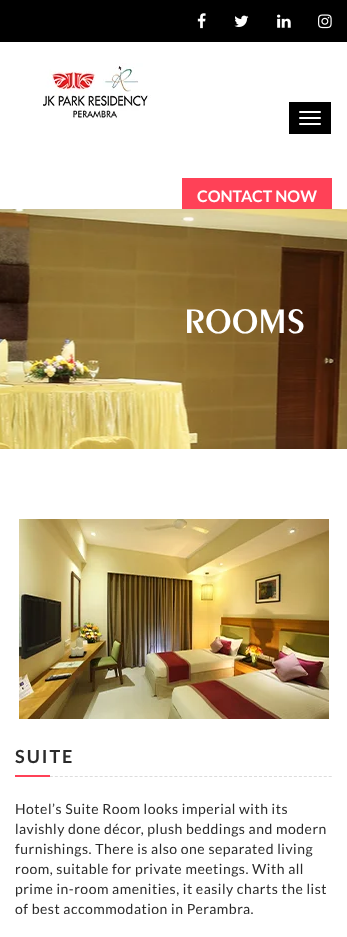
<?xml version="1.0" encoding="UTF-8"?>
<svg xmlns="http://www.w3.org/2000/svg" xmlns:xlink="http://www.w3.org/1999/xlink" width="347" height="937">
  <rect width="100%" height="100%" fill="#ffffff" />
  <rect width="347" height="42" fill="#000000" />
  <image x="197" y="13" width="9" height="16" xlink:href="image1.png" />
  <image x="234" y="15" width="15" height="12" xlink:href="image2.png" />
  <image x="277" y="14" width="14" height="14" xlink:href="image3.png" />
  <image x="318" y="14" width="14" height="15" xlink:href="image4.png" />
  <image x="43" y="63" width="108" height="56" xlink:href="image5.png" />
  <rect x="289" y="102" width="42" height="32" fill="#000000" />
  <rect x="299" y="111" width="22" height="2" rx="1" fill="#ffffff" />
  <rect x="299" y="117" width="22" height="2" rx="1" fill="#ffffff" />
  <rect x="299" y="123" width="22" height="2" rx="1" fill="#ffffff" />
  <rect x="182" y="178" width="150" height="31" fill="#ff4157" />
  <image x="0" y="209" width="347" height="240" xlink:href="image6.png" />
  <image x="19" y="519" width="310" height="200" xlink:href="image7.png" />
  <path d="M 15 776.5 h 317" fill="none" stroke="#dddddd" stroke-dasharray="3 1.98" />
  <rect x="15" y="775" width="35" height="2" fill="#ff4157" />
  <text x="197" y="202" style="font-family: Lato; font-size: 16px; font-weight: bold; fill: #ffffff">CONTACT NOW</text>
  <text x="184" y="333" style="font-family: 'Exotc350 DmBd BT'; font-size: 36px; font-weight: 600; fill: #ffffff">ROOMS</text>
  <text x="15" y="763" style="font-family: Lato; font-size: 18px; font-weight: bold; letter-spacing: 2px; fill: #2b2b2b">SUITE</text>
  <text x="15" y="814" style="font-family: Lato; font-size: 14px; letter-spacing: 0.5px; fill: #2b2b2b">Hotel’s Suite Room looks imperial with its</text>
  <text x="15" y="834" style="font-family: Lato; font-size: 14px; letter-spacing: 0.5px; fill: #2b2b2b">lavishly done décor, plush beddings and modern</text>
  <text x="15" y="854" style="font-family: Lato; font-size: 14px; letter-spacing: 0.5px; fill: #2b2b2b">furnishings. There is also one separated living</text>
  <text x="15" y="874" style="font-family: Lato; font-size: 14px; letter-spacing: 0.5px; fill: #2b2b2b">room, suitable for private meetings. With all</text>
  <text x="15" y="894" style="font-family: Lato; font-size: 14px; letter-spacing: 0.5px; fill: #2b2b2b">prime in-room amenities, it easily charts the list</text>
  <text x="15" y="914" style="font-family: Lato; font-size: 14px; letter-spacing: 0.5px; fill: #2b2b2b">of best accommodation in Perambra.</text>
</svg>
